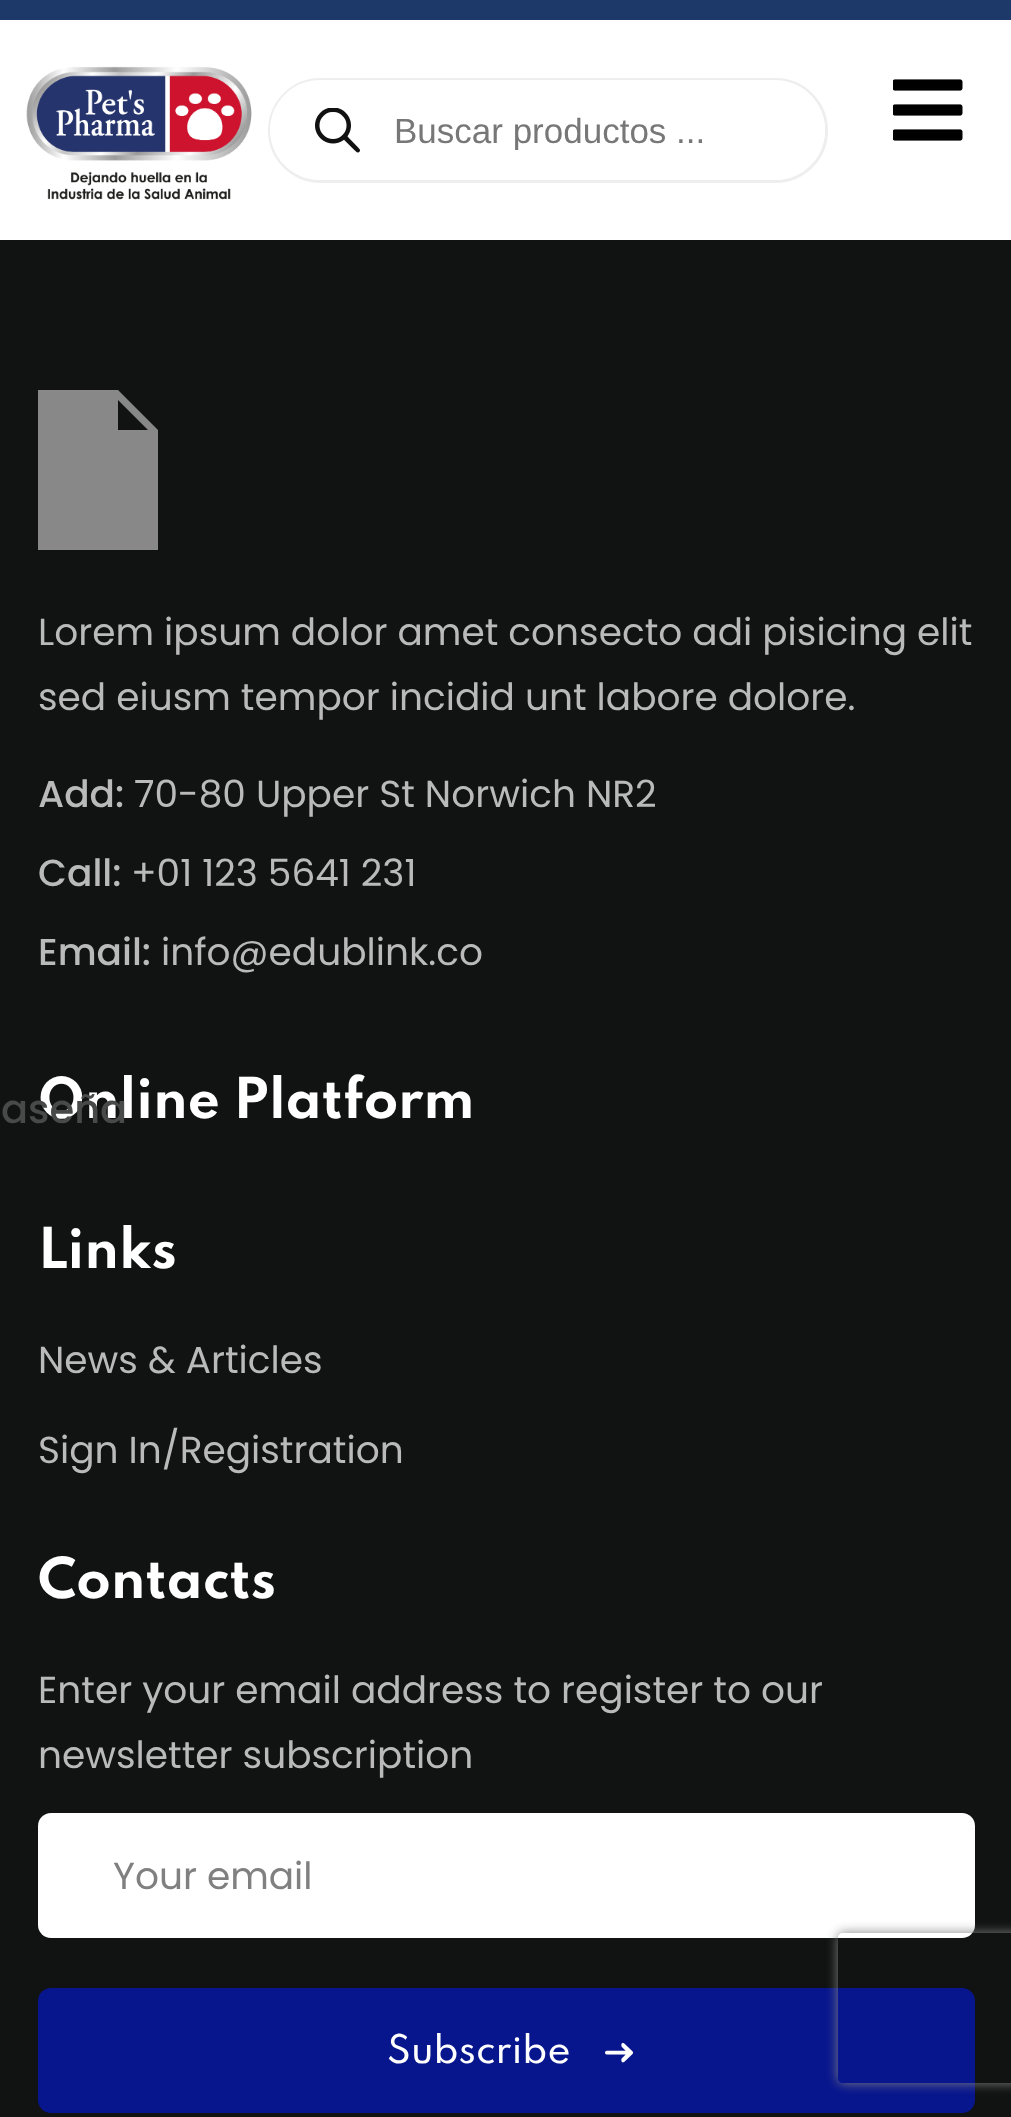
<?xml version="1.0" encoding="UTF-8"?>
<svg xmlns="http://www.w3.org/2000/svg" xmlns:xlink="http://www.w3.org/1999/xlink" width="1011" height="2117">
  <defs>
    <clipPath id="clip1"><path d="M 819 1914 h 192 v 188 h -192 z m 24 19 h 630 c 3 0 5 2 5 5 v 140 c 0 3 -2 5 -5 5 h -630 c -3 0 -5 -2 -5 -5 v -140 c 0 -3 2 -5 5 -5 z" clip-rule="evenodd" /></clipPath>
    <clipPath id="clip2"><rect x="395" y="110" width="365" height="40" /></clipPath>
  </defs>
  <rect width="100%" height="100%" fill="#ffffff" />
  <rect width="1011" height="20" fill="#1c3969" />
  <image x="26" y="66" width="226" height="134" xlink:href="image1.png" />
  <rect x="269.5" y="79.5" width="557" height="102" rx="51" fill="none" stroke="#eeeeee" stroke-width="3" />
  <rect x="270" y="80" width="555" height="100" rx="50" fill="#ffffff" />
  <image x="315" y="108" width="45" height="45" xlink:href="image2.png" />
  <image x="893" y="79" width="70" height="62" xlink:href="image3.png" />
  <rect y="240" width="1011" height="1877" fill="#111212" />
  <path d="M 118 390 h -80 v 160 h 120 v -120 z m 0 40 v -30 l 30 30 z" fill="#888888" />
  <rect x="38" y="1813" width="937" height="125" rx="13" fill="#ffffff" />
  <rect x="38" y="1988" width="937" height="125" rx="13" fill="#08168e" />
  <image x="605" y="2042" width="29" height="21" xlink:href="image4.png" />
  <g clip-path="url(#clip1)">
    <rect x="838" y="1933" width="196" height="150" rx="5" fill="#808080" filter="blur(6px)" />
  </g>
  <g clip-path="url(#clip2)">
    <text x="394" y="143" style="font-family: Liberation Sans; font-size: 35px; fill: #777777">Buscar productos ...</text>
  </g>
  <text x="38" y="645" style="font-family: Poppins; font-size: 37.5px; fill: #bababa">Lorem ipsum dolor amet consecto adi pisicing elit</text>
  <text x="38" y="710" style="font-family: Poppins; font-size: 37.5px; fill: #bababa">sed eiusm tempor incidid unt labore dolore.</text>
  <text x="38" y="807" style="font-family: Poppins; font-size: 37.5px; font-weight: 500; fill: #bababa">Add:</text>
  <text x="134" y="807" style="font-family: Poppins; font-size: 37.5px; fill: #bababa">70-80 Upper St Norwich NR2</text>
  <text x="38" y="886" style="font-family: Poppins; font-size: 37.5px; font-weight: 500; fill: #bababa">Call:</text>
  <text x="131" y="886" style="font-family: Poppins; font-size: 37.5px; fill: #bababa">+01 123 5641 231</text>
  <text x="38" y="965" style="font-family: Poppins; font-size: 37.5px; font-weight: 500; fill: #bababa">Email:</text>
  <text x="161" y="965" style="font-family: Poppins; font-size: 37.5px; fill: #bababa">info@edublink.co</text>
  <text x="38" y="1118" style="font-family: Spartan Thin; font-size: 50px; font-weight: bold; fill: #ffffff">Online Platform</text>
  <text x="1" y="1123" style="font-family: Poppins; font-size: 40px; font-weight: 500; fill: #484949">aseña</text>
  <text x="38" y="1268" style="font-family: Spartan Thin; font-size: 50px; font-weight: bold; fill: #ffffff">Links</text>
  <text x="38" y="1373" style="font-family: Poppins; font-size: 37.5px; fill: #bababa">News &amp; Articles</text>
  <text x="38" y="1463" style="font-family: Poppins; font-size: 37.5px; fill: #bababa">Sign In/Registration</text>
  <text x="38" y="1598" style="font-family: Spartan Thin; font-size: 50px; font-weight: bold; fill: #ffffff">Contacts</text>
  <text x="38" y="1703" style="font-family: Poppins; font-size: 37.5px; fill: #bababa">Enter your email address to register to our</text>
  <text x="38" y="1768" style="font-family: Poppins; font-size: 37.5px; fill: #bababa">newsletter subscription</text>
  <text x="113" y="1889" style="font-family: Poppins; font-size: 37.5px; fill: #808080">Your email</text>
  <text x="387" y="2063" style="font-family: Spartan Thin; font-size: 35px; font-weight: 500; fill: #ffffff">Subscribe</text>
</svg>
